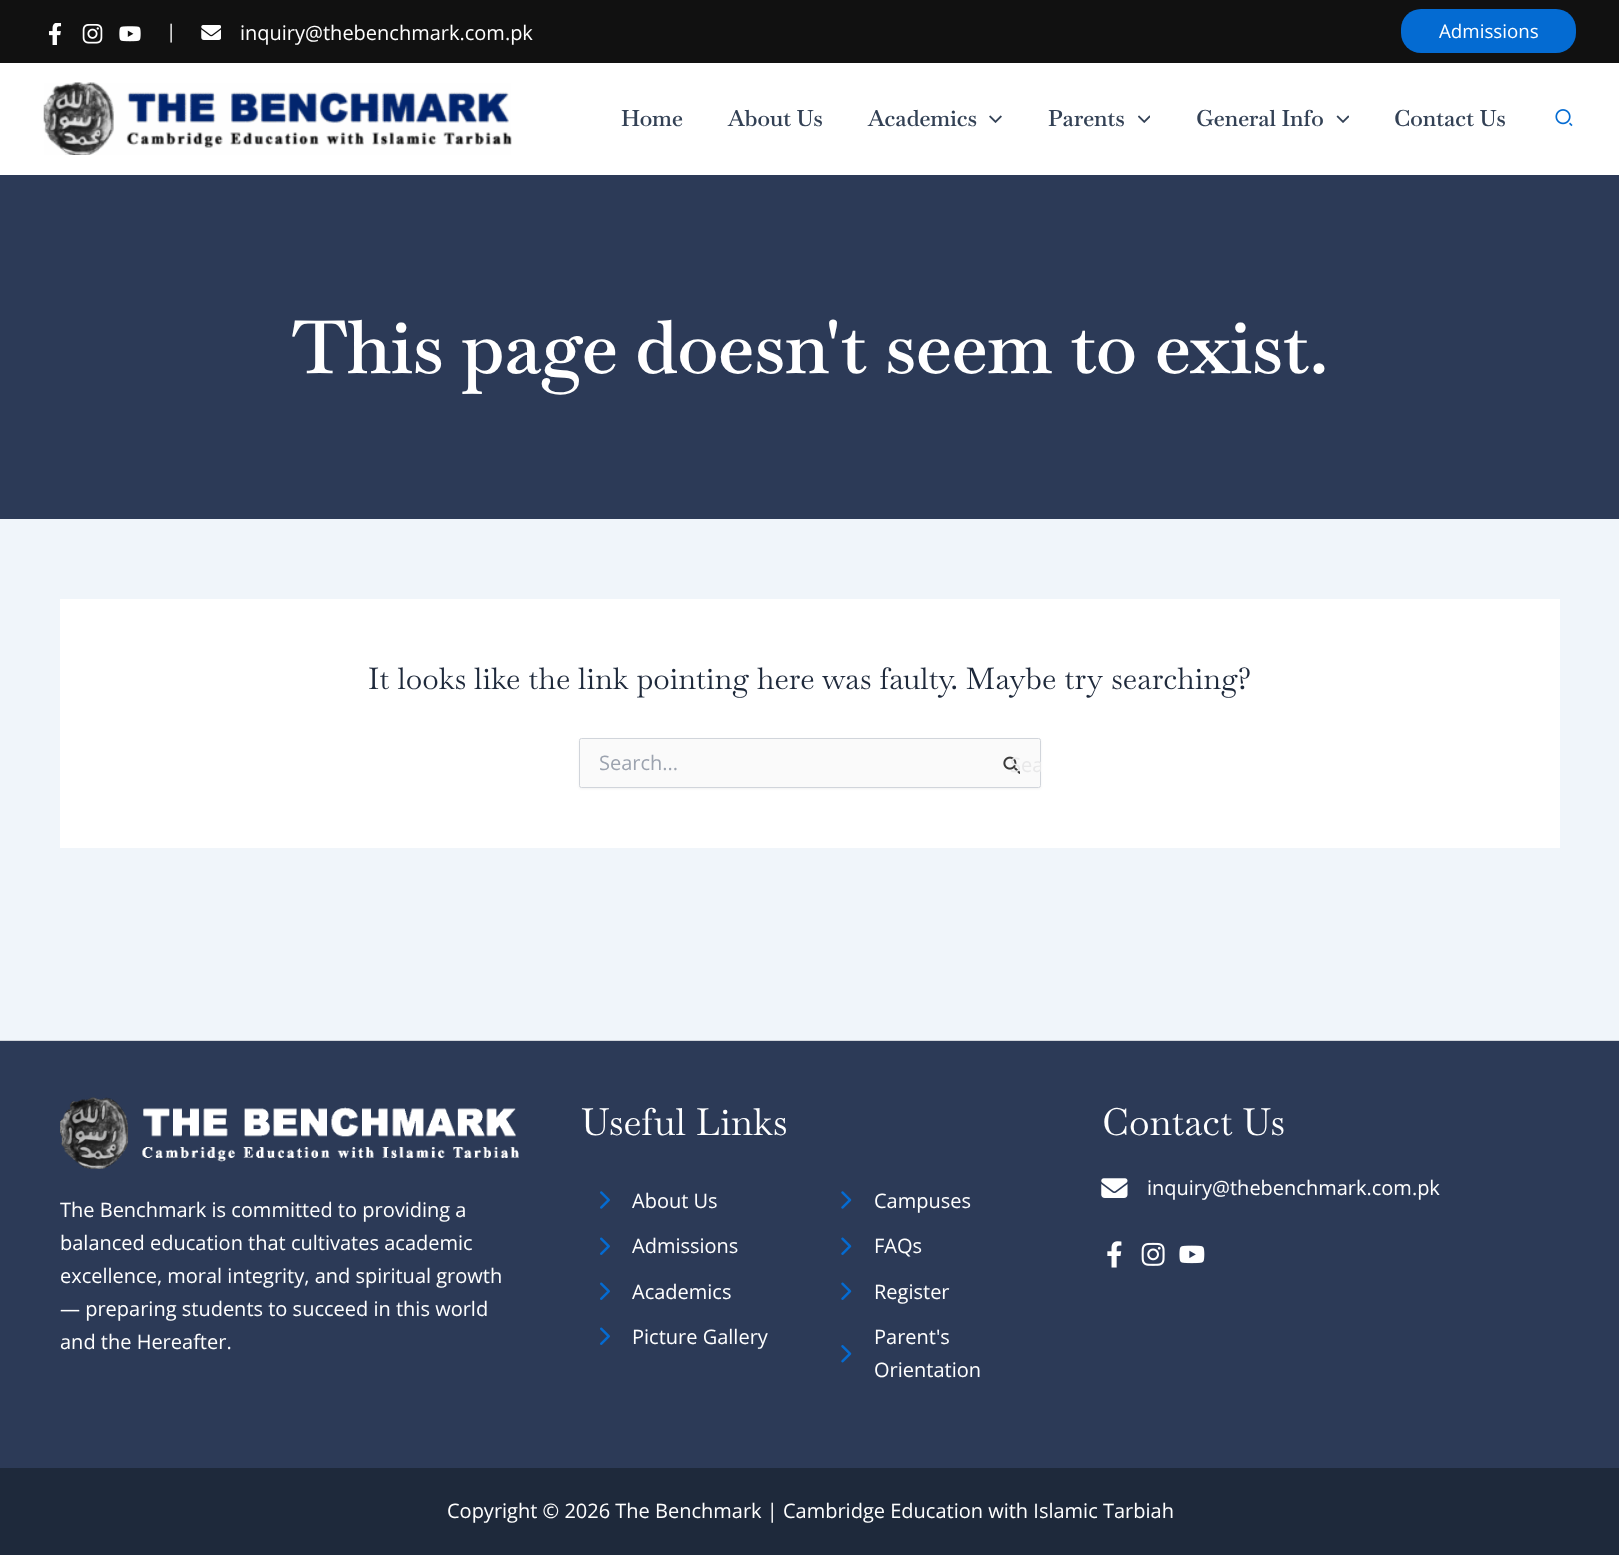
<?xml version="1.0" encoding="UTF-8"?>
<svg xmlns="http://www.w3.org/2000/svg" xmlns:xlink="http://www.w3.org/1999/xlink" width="1619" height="1555">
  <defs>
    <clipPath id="clip1"><rect x="985" y="738" width="56" height="52" rx="2.5" /></clipPath>
  </defs>
  <rect width="100%" height="100%" fill="#f0f5fa" />
  <rect width="1619" height="63" fill="#111111" />
  <image x="48" y="23" width="14" height="22" xlink:href="image1.png" />
  <image x="82" y="24" width="21" height="20" xlink:href="image2.png" />
  <image x="119" y="26" width="22" height="16" xlink:href="image3.png" />
  <image x="201" y="25" width="20" height="15" xlink:href="image4.png" />
  <rect x="1401" y="9" width="175" height="44" rx="20" fill="#046bd2" />
  <rect y="63" width="1619" height="112" fill="#ffffff" />
  <image x="43" y="82" width="469" height="73" xlink:href="image5.png" />
  <image x="989" y="115" width="13" height="8" xlink:href="image6.png" />
  <image x="1138" y="115" width="12" height="8" xlink:href="image7.png" />
  <image x="1336" y="115" width="13" height="8" xlink:href="image8.png" />
  <image x="1555" y="109" width="18" height="18" xlink:href="image9.png" />
  <rect y="175" width="1619" height="344" fill="#2c3a57" />
  <rect x="60" y="599" width="1500" height="249" fill="#ffffff" />
  <rect x="579" y="739" width="462" height="50" rx="2.5" fill="#000000" fill-opacity="0.05" filter="blur(1px)" />
  <rect x="579.5" y="738.5" width="461" height="49" rx="2" fill="#fafafa" stroke="#d1d5db" />
  <image x="1003" y="756" width="17" height="18" xlink:href="image10.png" />
  <rect y="1041" width="1619" height="427" fill="#2c3a57" />
  <rect y="1040" width="1619" height="1" fill="#d1d5db" />
  <image x="600" y="1191" width="10" height="18" xlink:href="image11.png" />
  <image x="600" y="1237" width="10" height="18" xlink:href="image12.png" />
  <image x="600" y="1282" width="10" height="18" xlink:href="image12.png" />
  <image x="600" y="1327" width="10" height="18" xlink:href="image12.png" />
  <image x="841" y="1191" width="11" height="18" xlink:href="image13.png" />
  <image x="841" y="1237" width="11" height="18" xlink:href="image14.png" />
  <image x="841" y="1282" width="11" height="18" xlink:href="image14.png" />
  <image x="841" y="1345" width="11" height="18" xlink:href="image15.png" />
  <image x="1101" y="1178" width="27" height="20" xlink:href="image16.png" />
  <image x="1107" y="1241" width="15" height="27" xlink:href="image17.png" />
  <image x="1141" y="1242" width="24" height="24" xlink:href="image18.png" />
  <image x="1179" y="1245" width="26" height="19" xlink:href="image19.png" />
  <image x="60" y="1097" width="459" height="72" xlink:href="image20.png" />
  <rect y="1468" width="1619" height="87" fill="#1e293b" />
  <text x="166" y="38" style="font-family: Open Sans; font-size: 18.75px; fill: #ffffff">|</text>
  <text x="240" y="40" style="font-family: Open Sans; font-size: 20px; fill: #ffffff">inquiry@thebenchmark.com.pk</text>
  <text x="1439" y="38" style="font-family: Open Sans; font-size: 18.75px; fill: #ffffff">Admissions</text>
  <text x="621" y="126" style="font-family: Baskervville; font-size: 22.5px; font-weight: 600; fill: #334155">Home</text>
  <text x="728" y="126" style="font-family: Baskervville; font-size: 22.5px; font-weight: 600; fill: #334155">About Us</text>
  <text x="868" y="126" style="font-family: Baskervville; font-size: 22.5px; font-weight: 600; fill: #334155">Academics</text>
  <text x="1048" y="126" style="font-family: Baskervville; font-size: 22.5px; font-weight: 600; fill: #334155">Parents</text>
  <text x="1196" y="126" style="font-family: Baskervville; font-size: 22.5px; font-weight: 600; fill: #334155">General Info</text>
  <text x="1394" y="126" style="font-family: Baskervville; font-size: 22.5px; font-weight: 600; fill: #334155">Contact Us</text>
  <text x="292" y="373" style="font-family: Baskervville; font-size: 73.75px; font-weight: 600; fill: #ffffff">This page doesn't seem to exist.</text>
  <text x="368" y="689" style="font-family: Baskervville; font-size: 30px; fill: #1e293b">It looks like the link pointing here was faulty. Maybe try searching?</text>
  <text x="599" y="770" style="font-family: Open Sans; font-size: 20px; fill: #9ca3af">Search...</text>
  <g clip-path="url(#clip1)">
    <text x="1010" y="772" style="font-family: Open Sans; font-size: 20px; fill: #e8e8e9">Sea</text>
  </g>
  <text x="581" y="1135" style="font-family: Baskervville; font-size: 37.5px; fill: #ffffff">Useful Links</text>
  <text x="632" y="1208" style="font-family: Open Sans; font-size: 20px; fill: #ffffff">About Us</text>
  <text x="632" y="1253" style="font-family: Open Sans; font-size: 20px; fill: #ffffff">Admissions</text>
  <text x="632" y="1299" style="font-family: Open Sans; font-size: 20px; fill: #ffffff">Academics</text>
  <text x="632" y="1344" style="font-family: Open Sans; font-size: 20px; fill: #ffffff">Picture Gallery</text>
  <text x="874" y="1208" style="font-family: Open Sans; font-size: 20px; fill: #ffffff">Campuses</text>
  <text x="874" y="1253" style="font-family: Open Sans; font-size: 20px; fill: #ffffff">FAQs</text>
  <text x="874" y="1299" style="font-family: Open Sans; font-size: 20px; fill: #ffffff">Register</text>
  <text x="874" y="1344" style="font-family: Open Sans; font-size: 20px; fill: #ffffff">Parent's</text>
  <text x="874" y="1377" style="font-family: Open Sans; font-size: 20px; fill: #ffffff">Orientation</text>
  <text x="1102" y="1135" style="font-family: Baskervville; font-size: 37.5px; fill: #ffffff">Contact Us</text>
  <text x="1147" y="1195" style="font-family: Open Sans; font-size: 20px; fill: #ffffff">inquiry@thebenchmark.com.pk</text>
  <text x="60" y="1217" style="font-family: Open Sans; font-size: 20px; fill: #ffffff">The Benchmark is committed to providing a</text>
  <text x="60" y="1250" style="font-family: Open Sans; font-size: 20px; fill: #ffffff">balanced education that cultivates academic</text>
  <text x="60" y="1283" style="font-family: Open Sans; font-size: 20px; fill: #ffffff">excellence, moral integrity, and spiritual growth</text>
  <text x="60" y="1316" style="font-family: Open Sans; font-size: 20px; fill: #ffffff">— preparing students to succeed in this world</text>
  <text x="60" y="1349" style="font-family: Open Sans; font-size: 20px; fill: #ffffff">and the Hereafter.</text>
  <text x="447" y="1518" style="font-family: Open Sans; font-size: 20px; fill: #ffffff">Copyright © 2026 The Benchmark | Cambridge Education with Islamic Tarbiah</text>
</svg>
